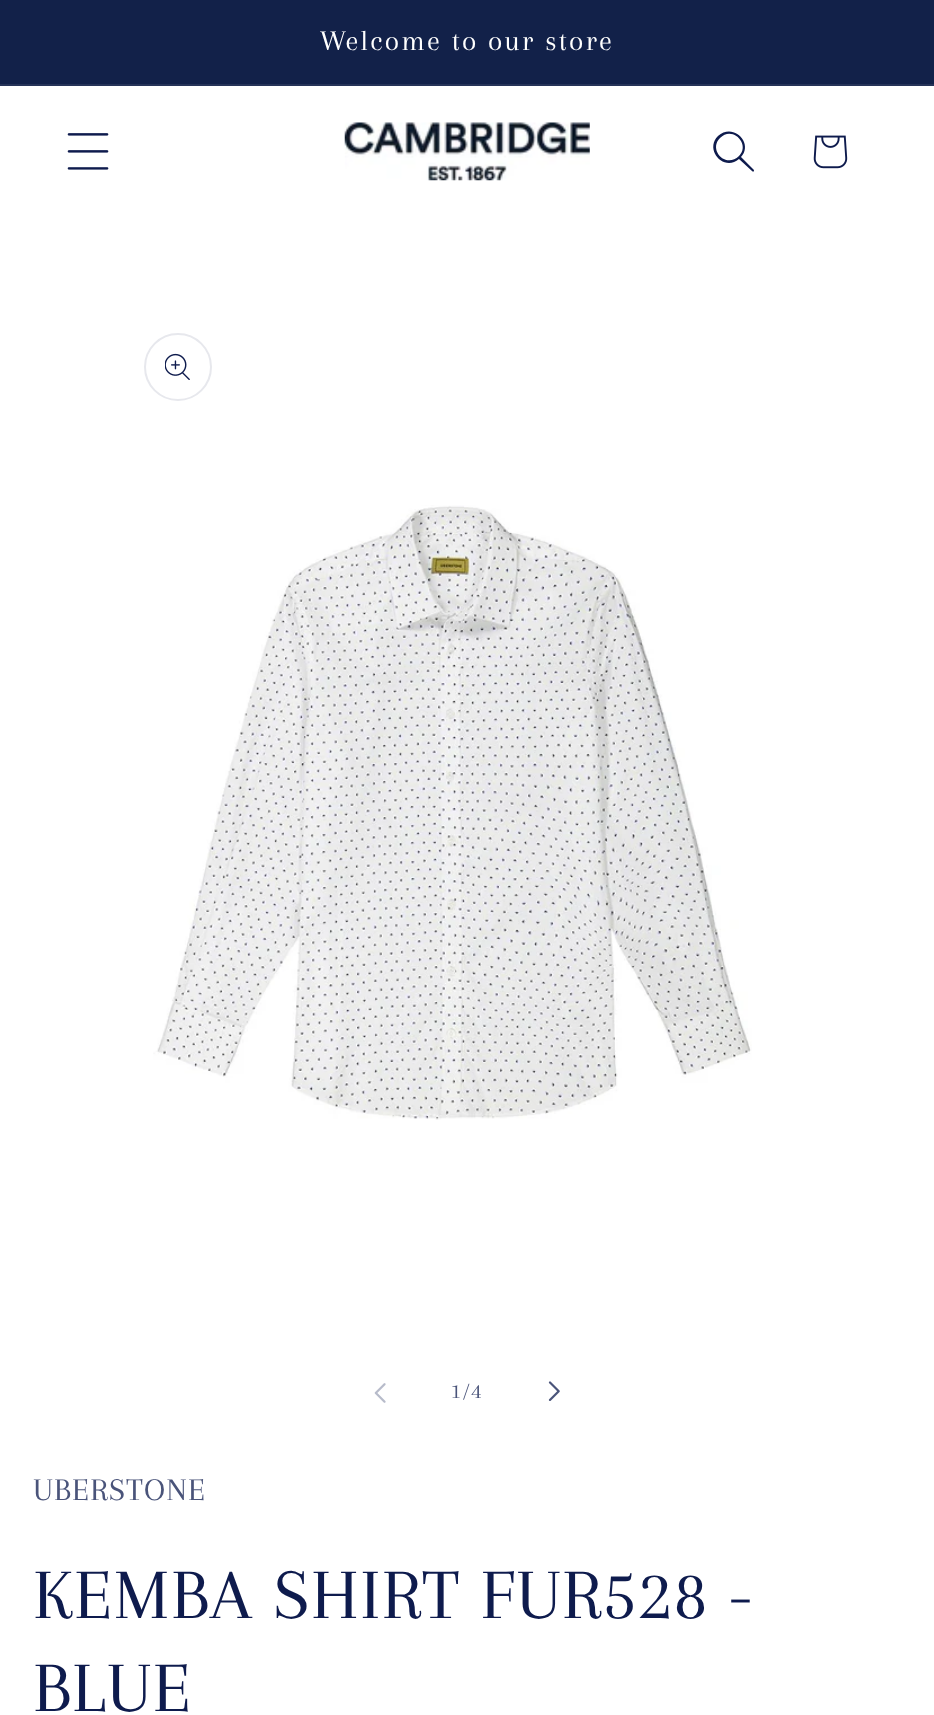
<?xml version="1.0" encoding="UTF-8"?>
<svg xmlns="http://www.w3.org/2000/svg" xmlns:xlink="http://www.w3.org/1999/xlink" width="934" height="1715">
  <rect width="100%" height="100%" fill="#ffffff" />
  <rect width="934" height="84" fill="#122149" />
  <rect y="84" width="934" height="2" fill="#253358" />
  <image x="67" y="133" width="42" height="37" xlink:href="image1.png" />
  <image x="344" y="122" width="246" height="59" xlink:href="image2.png" />
  <path d="M 739 156 c -13 13 -31 -6 -19 -18 c 12 -13 31 6 19 18 m 0 3 c -15 13 -35 -9 -21 -23 c 15 -14 36 7 23 21 l 13 13 c 0 2 -1 2 -2 1 z" fill="#0e1b4d" fill-rule="evenodd" />
  <image x="813" y="135" width="35" height="34" xlink:href="image3.png" />
  <circle cx="178" cy="367" r="33" fill="none" stroke="#e7e8ed" stroke-width="2" />
  <image x="165" y="353" width="25" height="27" xlink:href="image4.png" />
  <image x="153" y="505" width="599" height="615" xlink:href="image5.png" />
  <image x="374" y="1383" width="12" height="20" xlink:href="image6.png" />
  <image x="548" y="1381" width="12" height="20" xlink:href="image7.png" />
  <text x="320" y="50" style="font-family: Arapey; font-size: 29.4px; letter-spacing: 2.2px; fill: #ffffff">Welcome to our store</text>
  <text x="451" y="1398" style="font-family: Arapey; font-size: 22px; letter-spacing: 1.5px; fill: #4a547a">1/4</text>
  <text x="33" y="1500" style="font-family: Arapey; font-size: 32.75px; letter-spacing: 1.25px; fill: #4a547a">UBERSTONE</text>
  <text x="33" y="1618" style="font-family: Arapey; font-size: 73.5px; letter-spacing: 1.5px; fill: #0e1b4d">KEMBA SHIRT FUR528 -</text>
  <text x="33" y="1711" style="font-family: Arapey; font-size: 73.5px; letter-spacing: 1.5px; fill: #0e1b4d">BLUE</text>
</svg>
